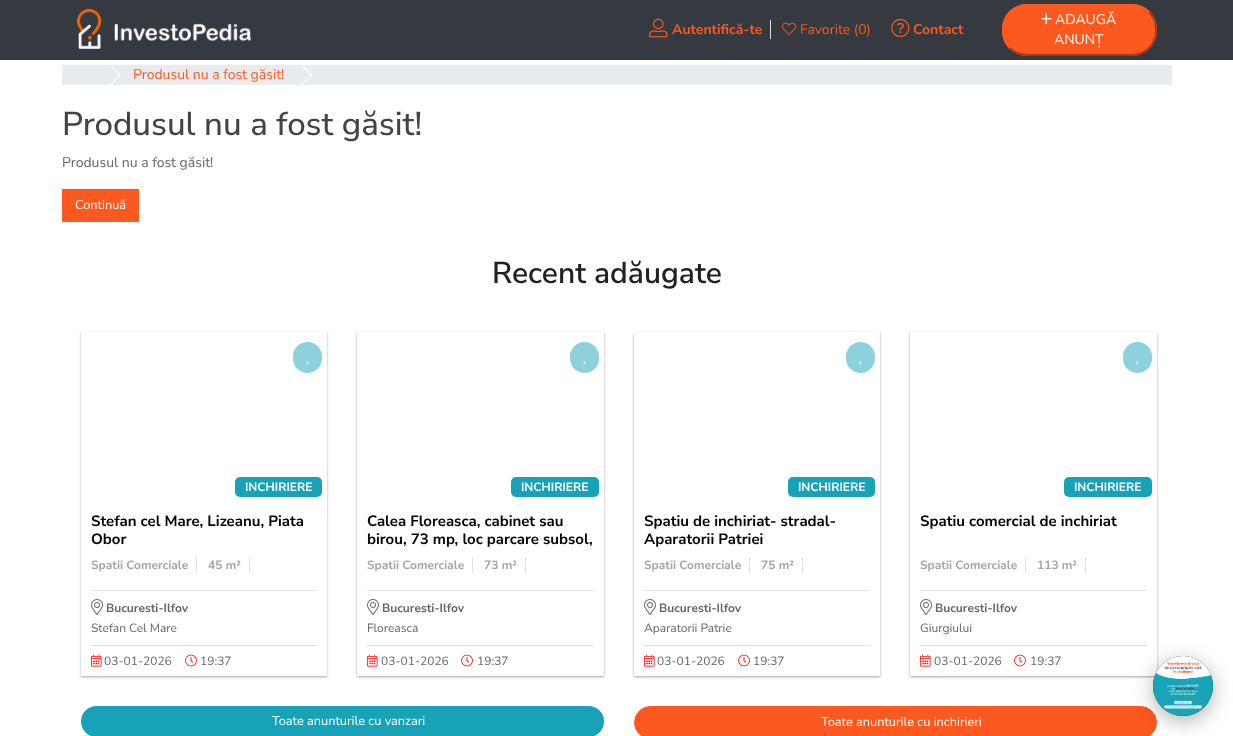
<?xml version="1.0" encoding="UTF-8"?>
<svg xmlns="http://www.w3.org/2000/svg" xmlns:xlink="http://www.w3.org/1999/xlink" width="1233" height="736">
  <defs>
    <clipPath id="clip1"><path d="M 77 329 h 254 v 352 h -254 z m 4 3 h 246 v 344 h -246 z" clip-rule="evenodd" /></clipPath>
    <clipPath id="clip2"><path d="M 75 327 h 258 v 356 h -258 z m 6 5 h 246 v 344 h -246 z" clip-rule="evenodd" /></clipPath>
    <clipPath id="clip3"><path d="M 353 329 h 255 v 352 h -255 z m 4 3 h 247 v 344 h -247 z" clip-rule="evenodd" /></clipPath>
    <clipPath id="clip4"><path d="M 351 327 h 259 v 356 h -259 z m 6 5 h 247 v 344 h -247 z" clip-rule="evenodd" /></clipPath>
    <clipPath id="clip5"><path d="M 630 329 h 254 v 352 h -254 z m 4 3 h 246 v 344 h -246 z" clip-rule="evenodd" /></clipPath>
    <clipPath id="clip6"><path d="M 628 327 h 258 v 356 h -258 z m 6 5 h 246 v 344 h -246 z" clip-rule="evenodd" /></clipPath>
    <clipPath id="clip7"><path d="M 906 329 h 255 v 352 h -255 z m 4 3 h 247 v 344 h -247 z" clip-rule="evenodd" /></clipPath>
    <clipPath id="clip8"><path d="M 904 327 h 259 v 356 h -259 z m 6 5 h 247 v 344 h -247 z" clip-rule="evenodd" /></clipPath>
  </defs>
  <rect width="100%" height="100%" fill="#ffffff" />
  <rect width="1233" height="60" fill="#343a40" />
  <image x="77" y="9" width="174" height="40" xlink:href="image1.png" />
  <rect x="770" y="20" width="1" height="19" fill="#dee2e6" />
  <image x="649" y="18" width="19" height="20" xlink:href="image2.png" />
  <image x="782" y="22" width="14" height="13" xlink:href="image3.png" />
  <image x="891" y="19" width="19" height="18" xlink:href="image4.png" />
  <rect x="1002" y="4" width="155" height="52" rx="25" fill="#fc5920" />
  <path d="M 1149 12 c 4.5 4.5 7 10.5 7 17 v 2 c 0 6.5 -2.5 12.5 -7 17 c -4.5 4.5 -10.5 7 -17 7 h -105 c -6.5 0 -12.5 -2.5 -17 -7" fill="none" stroke="#a83b15" stroke-width="2" />
  <path d="M 1010 48 c -4.5 -4.5 -7 -10.5 -7 -17 v -2 c 0 -6.5 2.5 -12.5 7 -17 c 4.5 -4.5 10.5 -7 17 -7 h 105 c 6.5 0 12.5 2.5 17 7" fill="none" stroke="#fc5920" stroke-width="2" />
  <image x="1041" y="13" width="11" height="11" xlink:href="image5.png" />
  <rect x="62" y="65" width="1110" height="20" fill="#e9ecef" />
  <path d="M 111 66.5 l 0.5 -0.5 l 9 9 l -0.5 1 z" fill="#ffffff" />
  <path d="M 110 84.5 l 10 -10 l 0.5 0.5 l -9.5 10 z" fill="#ffffff" />
  <path d="M 302 66.5 l 1 -0.5 l 9 9 l -0.5 1 z" fill="#ffffff" />
  <path d="M 301.5 84.5 l 10 -10 l 0.5 0.5 l -10 10 z" fill="#ffffff" />
  <rect x="62" y="189" width="77" height="33" fill="#fc5920" />
  <g clip-path="url(#clip1)">
    <rect x="81" y="333" width="246" height="344" fill="#000000" fill-opacity="0.24" filter="blur(1px)" />
  </g>
  <g clip-path="url(#clip2)">
    <rect x="81" y="333" width="246" height="344" fill="#000000" fill-opacity="0.12" filter="blur(1.5px)" />
  </g>
  <rect x="293" y="342" width="29" height="31" rx="14.5" fill="#8dd1dc" />
  <image x="306" y="361" width="3" height="4" xlink:href="image6.png" />
  <rect x="235" y="477" width="87" height="20" rx="5" fill="#17a2b8" />
  <rect x="196" y="557" width="1" height="16" fill="#dee2e6" />
  <rect x="249" y="557" width="1" height="16" fill="#dee2e6" />
  <rect x="91" y="590" width="226" height="1" fill="#e4e4e4" />
  <image x="91" y="599" width="12" height="16" xlink:href="image7.png" />
  <rect x="91" y="645" width="226" height="1" fill="#dddddd" />
  <image x="91" y="654" width="11" height="13" xlink:href="image8.png" />
  <image x="185" y="654" width="12" height="13" xlink:href="image9.png" />
  <g clip-path="url(#clip3)">
    <rect x="357" y="333" width="247" height="344" fill="#000000" fill-opacity="0.24" filter="blur(1px)" />
  </g>
  <g clip-path="url(#clip4)">
    <rect x="357" y="333" width="247" height="344" fill="#000000" fill-opacity="0.12" filter="blur(1.5px)" />
  </g>
  <rect x="570" y="342" width="29" height="31" rx="14.5" fill="#8dd1dc" />
  <image x="583" y="361" width="3" height="4" xlink:href="image6.png" />
  <rect x="511" y="477" width="88" height="20" rx="5" fill="#17a2b8" />
  <rect x="472" y="557" width="1" height="16" fill="#dee2e6" />
  <rect x="525" y="557" width="1" height="16" fill="#dee2e6" />
  <rect x="367" y="590" width="227" height="1" fill="#e4e4e4" />
  <image x="367" y="599" width="12" height="16" xlink:href="image7.png" />
  <rect x="367" y="645" width="227" height="1" fill="#dddddd" />
  <image x="367" y="654" width="11" height="13" xlink:href="image8.png" />
  <image x="461" y="654" width="12" height="13" xlink:href="image9.png" />
  <g clip-path="url(#clip5)">
    <rect x="634" y="333" width="246" height="344" fill="#000000" fill-opacity="0.24" filter="blur(1px)" />
  </g>
  <g clip-path="url(#clip6)">
    <rect x="634" y="333" width="246" height="344" fill="#000000" fill-opacity="0.12" filter="blur(1.5px)" />
  </g>
  <rect x="846" y="342" width="29" height="31" rx="14.5" fill="#8dd1dc" />
  <image x="859" y="361" width="3" height="4" xlink:href="image6.png" />
  <rect x="788" y="477" width="87" height="20" rx="5" fill="#17a2b8" />
  <rect x="749" y="557" width="1" height="16" fill="#dee2e6" />
  <rect x="802" y="557" width="1" height="16" fill="#dee2e6" />
  <rect x="644" y="590" width="226" height="1" fill="#e4e4e4" />
  <image x="644" y="599" width="12" height="16" xlink:href="image7.png" />
  <rect x="644" y="645" width="226" height="1" fill="#dddddd" />
  <image x="644" y="654" width="11" height="13" xlink:href="image8.png" />
  <image x="738" y="654" width="12" height="13" xlink:href="image9.png" />
  <g clip-path="url(#clip7)">
    <rect x="910" y="333" width="247" height="344" fill="#000000" fill-opacity="0.24" filter="blur(1px)" />
  </g>
  <g clip-path="url(#clip8)">
    <rect x="910" y="333" width="247" height="344" fill="#000000" fill-opacity="0.12" filter="blur(1.5px)" />
  </g>
  <rect x="1123" y="342" width="29" height="31" rx="14.5" fill="#8dd1dc" />
  <image x="1136" y="361" width="3" height="4" xlink:href="image6.png" />
  <rect x="1064" y="477" width="88" height="20" rx="5" fill="#17a2b8" />
  <rect x="1025" y="557" width="1" height="16" fill="#dee2e6" />
  <rect x="1085" y="557" width="1" height="16" fill="#dee2e6" />
  <rect x="920" y="590" width="227" height="1" fill="#e4e4e4" />
  <image x="920" y="599" width="12" height="16" xlink:href="image7.png" />
  <rect x="920" y="645" width="227" height="1" fill="#dddddd" />
  <image x="920" y="654" width="11" height="13" xlink:href="image8.png" />
  <image x="1014" y="654" width="12" height="13" xlink:href="image9.png" />
  <rect x="81" y="706" width="523" height="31" rx="15.5" fill="#17a2b8" />
  <rect x="634.5" y="706.5" width="522" height="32" rx="16" fill="#fc5920" stroke="#fc5920" />
  <rect x="1153" y="661" width="60" height="60" rx="30" fill="#000000" fill-opacity="0.3" filter="blur(10px)" />
  <circle cx="1183" cy="686" r="30" fill="#222222" />
  <image x="1153" y="656" width="60" height="60" xlink:href="image10.png" />
  <text x="672" y="34" style="font-family: Nunito Sans; font-size: 14px; font-weight: bold; fill: #fc5920">Autentifică-te</text>
  <text x="800" y="34" style="font-family: Nunito Sans; font-size: 14px; fill: #fc5920">Favorite (0)</text>
  <text x="913" y="34" style="font-family: Nunito Sans; font-size: 14px; font-weight: bold; fill: #fc5920">Contact</text>
  <text x="1055" y="24" style="font-family: Nunito Sans; font-size: 14px; fill: #ffffff">ADAUGĂ</text>
  <text x="1054" y="44" style="font-family: Nunito Sans; font-size: 14px; fill: #ffffff">ANUNȚ</text>
  <text x="133" y="79" style="font-family: Nunito Sans; font-size: 14px; fill: #fc5920">Produsul nu a fost găsit!</text>
  <text x="62" y="135" style="font-family: Nunito Sans; font-size: 33px; font-weight: 500; fill: #444444">Produsul nu a fost găsit!</text>
  <text x="62" y="167" style="font-family: Nunito Sans; font-size: 14px; fill: #666666">Produsul nu a fost găsit!</text>
  <text x="75" y="209" style="font-family: Nunito Sans; font-size: 12.75px; fill: #ffffff">Continuă</text>
  <text x="492" y="283" style="font-family: Nunito Sans; font-size: 30px; font-weight: 600; fill: #212121">Recent adăugate</text>
  <text x="245" y="491" style="font-family: Nunito Sans; font-size: 12px; font-weight: bold; fill: #ffffff">INCHIRIERE</text>
  <text x="91" y="526" style="font-family: Nunito Sans; font-size: 15px; font-weight: bold; fill: #000000">Stefan cel Mare, Lizeanu, Piata</text>
  <text x="91" y="544" style="font-family: Nunito Sans; font-size: 15px; font-weight: bold; fill: #000000">Obor</text>
  <text x="91" y="569" style="font-family: Nunito Sans; font-size: 12px; font-weight: bold; fill: #a5a5a5">Spatii Comerciale</text>
  <text x="208" y="569" style="font-family: Nunito Sans; font-size: 12px; font-weight: bold; fill: #a5a5a5">45 m²</text>
  <text x="106" y="612" style="font-family: Nunito Sans; font-size: 12px; font-weight: bold; fill: #666666">Bucuresti-Ilfov</text>
  <text x="91" y="632" style="font-family: Nunito Sans; font-size: 12px; fill: #666666">Stefan Cel Mare</text>
  <text x="104" y="665" style="font-family: Nunito Sans; font-size: 12px; fill: #666666">03-01-2026</text>
  <text x="200" y="665" style="font-family: Nunito Sans; font-size: 12px; fill: #666666">19:37</text>
  <text x="521" y="491" style="font-family: Nunito Sans; font-size: 12px; font-weight: bold; fill: #ffffff">INCHIRIERE</text>
  <text x="367" y="526" style="font-family: Nunito Sans; font-size: 15px; font-weight: bold; fill: #000000">Calea Floreasca, cabinet sau</text>
  <text x="367" y="544" style="font-family: Nunito Sans; font-size: 15px; font-weight: bold; fill: #000000">birou, 73 mp, loc parcare subsol,</text>
  <text x="367" y="569" style="font-family: Nunito Sans; font-size: 12px; font-weight: bold; fill: #a5a5a5">Spatii Comerciale</text>
  <text x="484" y="569" style="font-family: Nunito Sans; font-size: 12px; font-weight: bold; fill: #a5a5a5">73 m²</text>
  <text x="382" y="612" style="font-family: Nunito Sans; font-size: 12px; font-weight: bold; fill: #666666">Bucuresti-Ilfov</text>
  <text x="367" y="632" style="font-family: Nunito Sans; font-size: 12px; fill: #666666">Floreasca</text>
  <text x="381" y="665" style="font-family: Nunito Sans; font-size: 12px; fill: #666666">03-01-2026</text>
  <text x="477" y="665" style="font-family: Nunito Sans; font-size: 12px; fill: #666666">19:37</text>
  <text x="798" y="491" style="font-family: Nunito Sans; font-size: 12px; font-weight: bold; fill: #ffffff">INCHIRIERE</text>
  <text x="644" y="526" style="font-family: Nunito Sans; font-size: 15px; font-weight: bold; fill: #000000">Spatiu de inchiriat- stradal-</text>
  <text x="644" y="544" style="font-family: Nunito Sans; font-size: 15px; font-weight: bold; fill: #000000">Aparatorii Patriei</text>
  <text x="644" y="569" style="font-family: Nunito Sans; font-size: 12px; font-weight: bold; fill: #a5a5a5">Spatii Comerciale</text>
  <text x="761" y="569" style="font-family: Nunito Sans; font-size: 12px; font-weight: bold; fill: #a5a5a5">75 m²</text>
  <text x="659" y="612" style="font-family: Nunito Sans; font-size: 12px; font-weight: bold; fill: #666666">Bucuresti-Ilfov</text>
  <text x="644" y="632" style="font-family: Nunito Sans; font-size: 12px; fill: #666666">Aparatorii Patrie</text>
  <text x="657" y="665" style="font-family: Nunito Sans; font-size: 12px; fill: #666666">03-01-2026</text>
  <text x="753" y="665" style="font-family: Nunito Sans; font-size: 12px; fill: #666666">19:37</text>
  <text x="1074" y="491" style="font-family: Nunito Sans; font-size: 12px; font-weight: bold; fill: #ffffff">INCHIRIERE</text>
  <text x="920" y="526" style="font-family: Nunito Sans; font-size: 15px; font-weight: bold; fill: #000000">Spatiu comercial de inchiriat</text>
  <text x="920" y="569" style="font-family: Nunito Sans; font-size: 12px; font-weight: bold; fill: #a5a5a5">Spatii Comerciale</text>
  <text x="1037" y="569" style="font-family: Nunito Sans; font-size: 12px; font-weight: bold; fill: #a5a5a5">113 m²</text>
  <text x="935" y="612" style="font-family: Nunito Sans; font-size: 12px; font-weight: bold; fill: #666666">Bucuresti-Ilfov</text>
  <text x="920" y="632" style="font-family: Nunito Sans; font-size: 12px; fill: #666666">Giurgiului</text>
  <text x="934" y="665" style="font-family: Nunito Sans; font-size: 12px; fill: #666666">03-01-2026</text>
  <text x="1030" y="665" style="font-family: Nunito Sans; font-size: 12px; fill: #666666">19:37</text>
  <text x="272" y="725" style="font-family: Nunito Sans; font-size: 12.75px; fill: #ffffff">Toate anunturile cu vanzari</text>
  <text x="821" y="726" style="font-family: Nunito Sans; font-size: 12.75px; fill: #ffffff">Toate anunturile cu inchirieri</text>
</svg>
